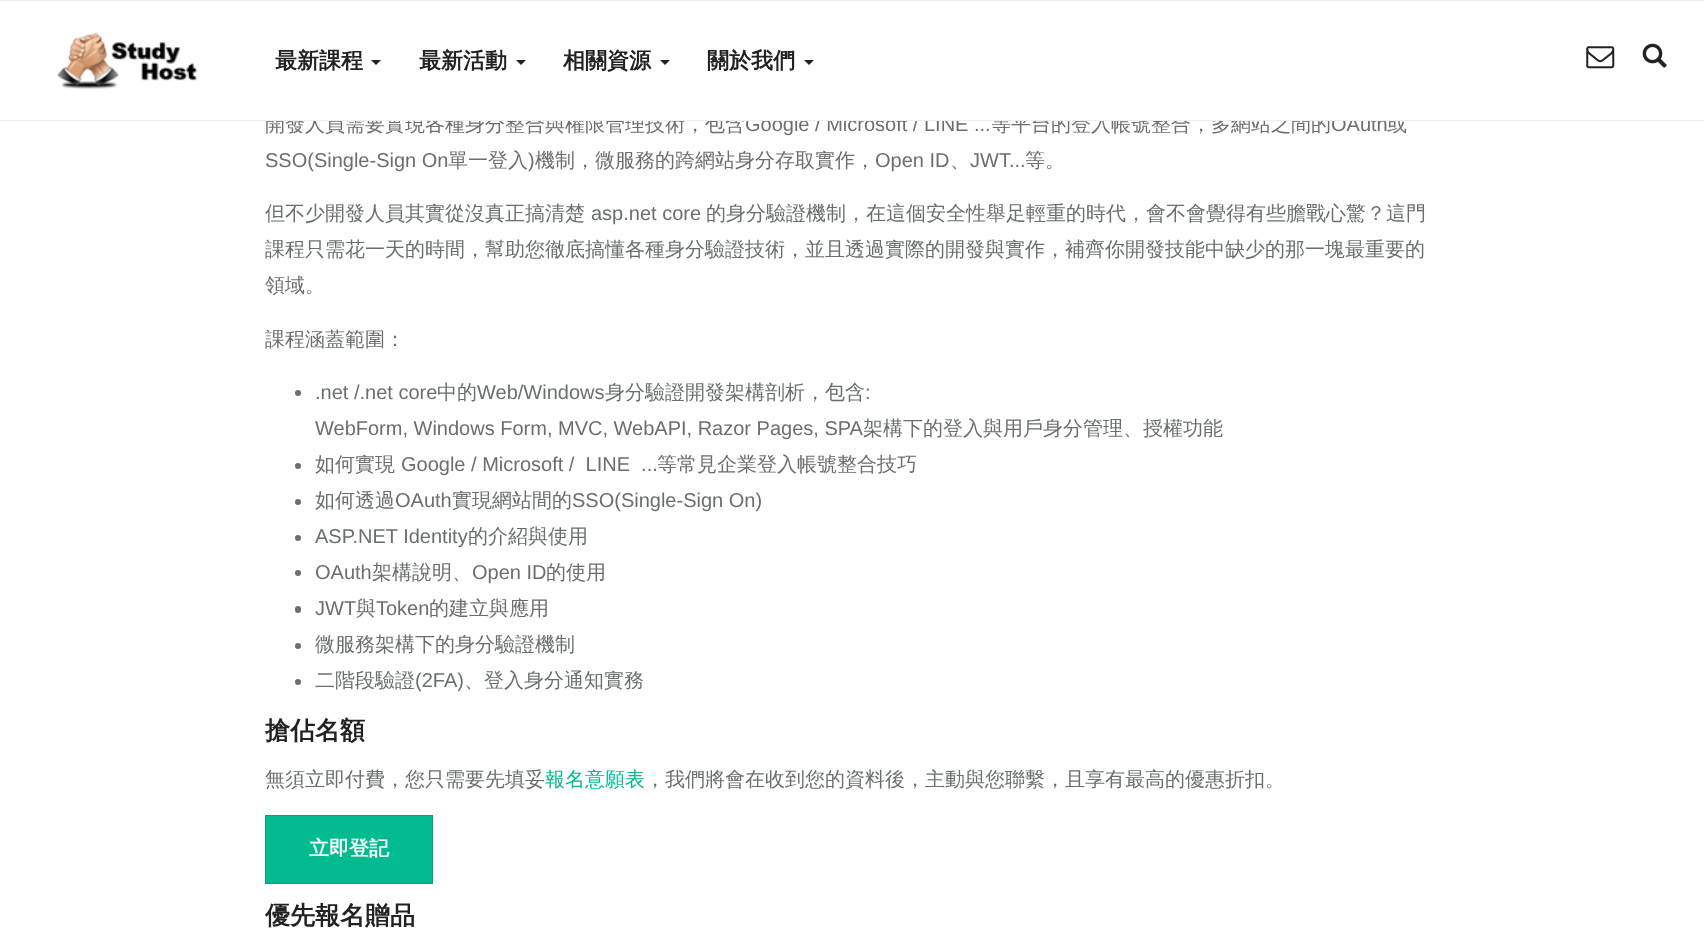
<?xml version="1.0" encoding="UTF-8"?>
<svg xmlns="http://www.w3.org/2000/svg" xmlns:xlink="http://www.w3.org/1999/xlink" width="1704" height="947">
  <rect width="100%" height="100%" fill="#ffffff" />
  <image x="57" y="32" width="141" height="57" xlink:href="image1.png" />
  <image x="1586" y="46" width="29" height="23" xlink:href="image2.png" />
  <image x="1642" y="43" width="25" height="25" xlink:href="image3.png" />
  <rect width="1704" height="1" fill="#eeeeee" />
  <path d="M 371 60 h 10 l -5 5 z" fill="#222222" />
  <path d="M 516 60 h 10 l -5 5 z" fill="#222222" />
  <path d="M 660 60 h 10 l -5 5 z" fill="#222222" />
  <path d="M 804 60 h 10 l -5 5 z" fill="#222222" />
  <circle cx="298" cy="393" r="3" fill="#696f6f" />
  <circle cx="298" cy="466" r="3" fill="#696f6f" />
  <circle cx="298" cy="502" r="3" fill="#696f6f" />
  <circle cx="298" cy="538" r="3" fill="#696f6f" />
  <circle cx="298" cy="573" r="3" fill="#696f6f" />
  <rect x="295" y="606" width="6" height="7" rx="3" fill="#696f6f" />
  <circle cx="298" cy="646" r="3" fill="#696f6f" />
  <circle cx="298" cy="682" r="3" fill="#696f6f" />
  <rect x="265.5" y="815.5" width="167" height="68" fill="#00ba90" stroke="#00a17c" />
  <text x="275" y="68" style="font-family: WenQuanYi Zen Hei; font-size: 22px; font-weight: bold; fill: #222222">最新課程</text>
  <text x="419" y="68" style="font-family: WenQuanYi Zen Hei; font-size: 22px; font-weight: bold; fill: #222222">最新活動</text>
  <text x="563" y="68" style="font-family: WenQuanYi Zen Hei; font-size: 22px; font-weight: bold; fill: #222222">相關資源</text>
  <text x="707" y="68" style="font-family: WenQuanYi Zen Hei; font-size: 22px; font-weight: bold; fill: #222222">關於我們</text>
  <text x="265" y="131" style="font-family: WenQuanYi Zen Hei; font-size: 20px; font-weight: 500; fill: #696f6f">開發人員需要實現各種身分整合與權限管理技術，包含</text>
  <text x="745" y="131" style="font-family: Liberation Sans; font-size: 20px; fill: #696f6f">Google / Microsoft / LINE ...</text>
  <text x="991" y="131" style="font-family: WenQuanYi Zen Hei; font-size: 20px; font-weight: 500; fill: #696f6f">等平台的登入帳號整合，多網站之間的</text>
  <text x="1331" y="131" style="font-family: Liberation Sans; font-size: 20px; fill: #696f6f">OAuth</text>
  <text x="1387" y="131" style="font-family: WenQuanYi Zen Hei; font-size: 20px; font-weight: 500; fill: #696f6f">或</text>
  <rect y="120" width="1704" height="1" fill="#eeeeee" />
  <rect x="266" y="114" width="1141" height="6" fill="#ffffff" />
  <text x="265" y="167" style="font-family: Liberation Sans; font-size: 20px; fill: #696f6f">SSO(Single-Sign On</text>
  <text x="448" y="167" style="font-family: WenQuanYi Zen Hei; font-size: 20px; font-weight: 500; fill: #696f6f">單一登入</text>
  <text x="528" y="167" style="font-family: Liberation Sans; font-size: 20px; fill: #696f6f">)</text>
  <text x="535" y="167" style="font-family: WenQuanYi Zen Hei; font-size: 20px; font-weight: 500; fill: #696f6f">機制，微服務的跨網站身分存取實作，</text>
  <text x="875" y="167" style="font-family: Liberation Sans; font-size: 20px; fill: #696f6f">Open ID</text>
  <text x="950" y="167" style="font-family: WenQuanYi Zen Hei; font-size: 20px; font-weight: 500; fill: #696f6f">、</text>
  <text x="970" y="167" style="font-family: Liberation Sans; font-size: 20px; fill: #696f6f">JWT...</text>
  <text x="1025" y="167" style="font-family: WenQuanYi Zen Hei; font-size: 20px; font-weight: 500; fill: #696f6f">等。</text>
  <text x="265" y="220" style="font-family: WenQuanYi Zen Hei; font-size: 20px; font-weight: 500; fill: #696f6f">但不少開發人員其實從沒真正搞清楚</text>
  <text x="591" y="220" style="font-family: Liberation Sans; font-size: 20px; fill: #696f6f">asp.net core</text>
  <text x="706" y="220" style="font-family: WenQuanYi Zen Hei; font-size: 20px; font-weight: 500; fill: #696f6f">的身分驗證機制，在這個安全性舉足輕重的時代，會不會覺得有些膽戰心驚？這門</text>
  <text x="265" y="256" style="font-family: WenQuanYi Zen Hei; font-size: 20px; font-weight: 500; fill: #696f6f">課程只需花一天的時間，幫助您徹底搞懂各種身分驗證技術，並且透過實際的開發與實作，補齊你開發技能中缺少的那一塊最重要的</text>
  <text x="265" y="292" style="font-family: WenQuanYi Zen Hei; font-size: 20px; font-weight: 500; fill: #696f6f">領域。</text>
  <text x="265" y="346" style="font-family: WenQuanYi Zen Hei; font-size: 20px; font-weight: 500; fill: #696f6f">課程涵蓋範圍：</text>
  <text x="315" y="399" style="font-family: Liberation Sans; font-size: 20px; fill: #696f6f">.net /.net core</text>
  <text x="437" y="399" style="font-family: WenQuanYi Zen Hei; font-size: 20px; font-weight: 500; fill: #696f6f">中的</text>
  <text x="477" y="399" style="font-family: Liberation Sans; font-size: 20px; fill: #696f6f">Web/Windows</text>
  <text x="605" y="399" style="font-family: WenQuanYi Zen Hei; font-size: 20px; font-weight: 500; fill: #696f6f">身分驗證開發架構剖析，包含</text>
  <text x="865" y="399" style="font-family: Liberation Sans; font-size: 20px; fill: #696f6f">:</text>
  <text x="315" y="435" style="font-family: Liberation Sans; font-size: 20px; fill: #696f6f">WebForm, Windows Form, MVC, WebAPI, Razor Pages, SPA</text>
  <text x="863" y="435" style="font-family: WenQuanYi Zen Hei; font-size: 20px; font-weight: 500; fill: #696f6f">架構下的登入與用戶身分管理、授權功能</text>
  <text x="315" y="471" style="font-family: WenQuanYi Zen Hei; font-size: 20px; font-weight: 500; fill: #696f6f">如何實現</text>
  <text x="401" y="471" style="font-family: Liberation Sans; font-size: 20px; fill: #696f6f" xml:space="preserve">Google / Microsoft /  LINE  ...</text>
  <text x="657" y="471" style="font-family: WenQuanYi Zen Hei; font-size: 20px; font-weight: 500; fill: #696f6f">等常見企業登入帳號整合技巧</text>
  <text x="315" y="507" style="font-family: WenQuanYi Zen Hei; font-size: 20px; font-weight: 500; fill: #696f6f">如何透過</text>
  <text x="395" y="507" style="font-family: Liberation Sans; font-size: 20px; fill: #696f6f">OAuth</text>
  <text x="452" y="507" style="font-family: WenQuanYi Zen Hei; font-size: 20px; font-weight: 500; fill: #696f6f">實現網站間的</text>
  <text x="572" y="507" style="font-family: Liberation Sans; font-size: 20px; fill: #696f6f">SSO(Single-Sign On)</text>
  <text x="315" y="543" style="font-family: Liberation Sans; font-size: 20px; fill: #696f6f">ASP.NET Identity</text>
  <text x="468" y="543" style="font-family: WenQuanYi Zen Hei; font-size: 20px; font-weight: 500; fill: #696f6f">的介紹與使用</text>
  <text x="315" y="579" style="font-family: Liberation Sans; font-size: 20px; fill: #696f6f">OAuth</text>
  <text x="372" y="579" style="font-family: WenQuanYi Zen Hei; font-size: 20px; font-weight: 500; fill: #696f6f">架構說明、</text>
  <text x="472" y="579" style="font-family: Liberation Sans; font-size: 20px; fill: #696f6f">Open ID</text>
  <text x="546" y="579" style="font-family: WenQuanYi Zen Hei; font-size: 20px; font-weight: 500; fill: #696f6f">的使用</text>
  <text x="315" y="615" style="font-family: Liberation Sans; font-size: 20px; fill: #696f6f">JWT</text>
  <text x="356" y="615" style="font-family: WenQuanYi Zen Hei; font-size: 20px; font-weight: 500; fill: #696f6f">與</text>
  <text x="376" y="615" style="font-family: Liberation Sans; font-size: 20px; fill: #696f6f">Token</text>
  <text x="429" y="615" style="font-family: WenQuanYi Zen Hei; font-size: 20px; font-weight: 500; fill: #696f6f">的建立與應用</text>
  <text x="315" y="651" style="font-family: WenQuanYi Zen Hei; font-size: 20px; font-weight: 500; fill: #696f6f">微服務架構下的身分驗證機制</text>
  <text x="315" y="687" style="font-family: WenQuanYi Zen Hei; font-size: 20px; font-weight: 500; fill: #696f6f">二階段驗證</text>
  <text x="415" y="687" style="font-family: Liberation Sans; font-size: 20px; fill: #696f6f">(2FA)</text>
  <text x="464" y="687" style="font-family: WenQuanYi Zen Hei; font-size: 20px; font-weight: 500; fill: #696f6f">、登入身分通知實務</text>
  <text x="265" y="739" style="font-family: WenQuanYi Zen Hei; font-size: 25px; font-weight: bold; fill: #222222">搶佔名額</text>
  <text x="265" y="786" style="font-family: WenQuanYi Zen Hei; font-size: 20px; font-weight: 500; fill: #696f6f">無須立即付費，您只需要先填妥</text>
  <text x="545" y="786" style="font-family: WenQuanYi Zen Hei; font-size: 20px; font-weight: 500; fill: #00ba90">報名意願表</text>
  <text x="645" y="786" style="font-family: WenQuanYi Zen Hei; font-size: 20px; font-weight: 500; fill: #696f6f">，我們將會在收到您的資料後，主動與您聯繫，且享有最高的優惠折扣。</text>
  <text x="309" y="855" style="font-family: WenQuanYi Zen Hei; font-size: 20px; font-weight: bold; fill: #ffffff">立即登記</text>
  <text x="265" y="924" style="font-family: WenQuanYi Zen Hei; font-size: 25px; font-weight: bold; fill: #222222">優先報名贈品</text>
</svg>
